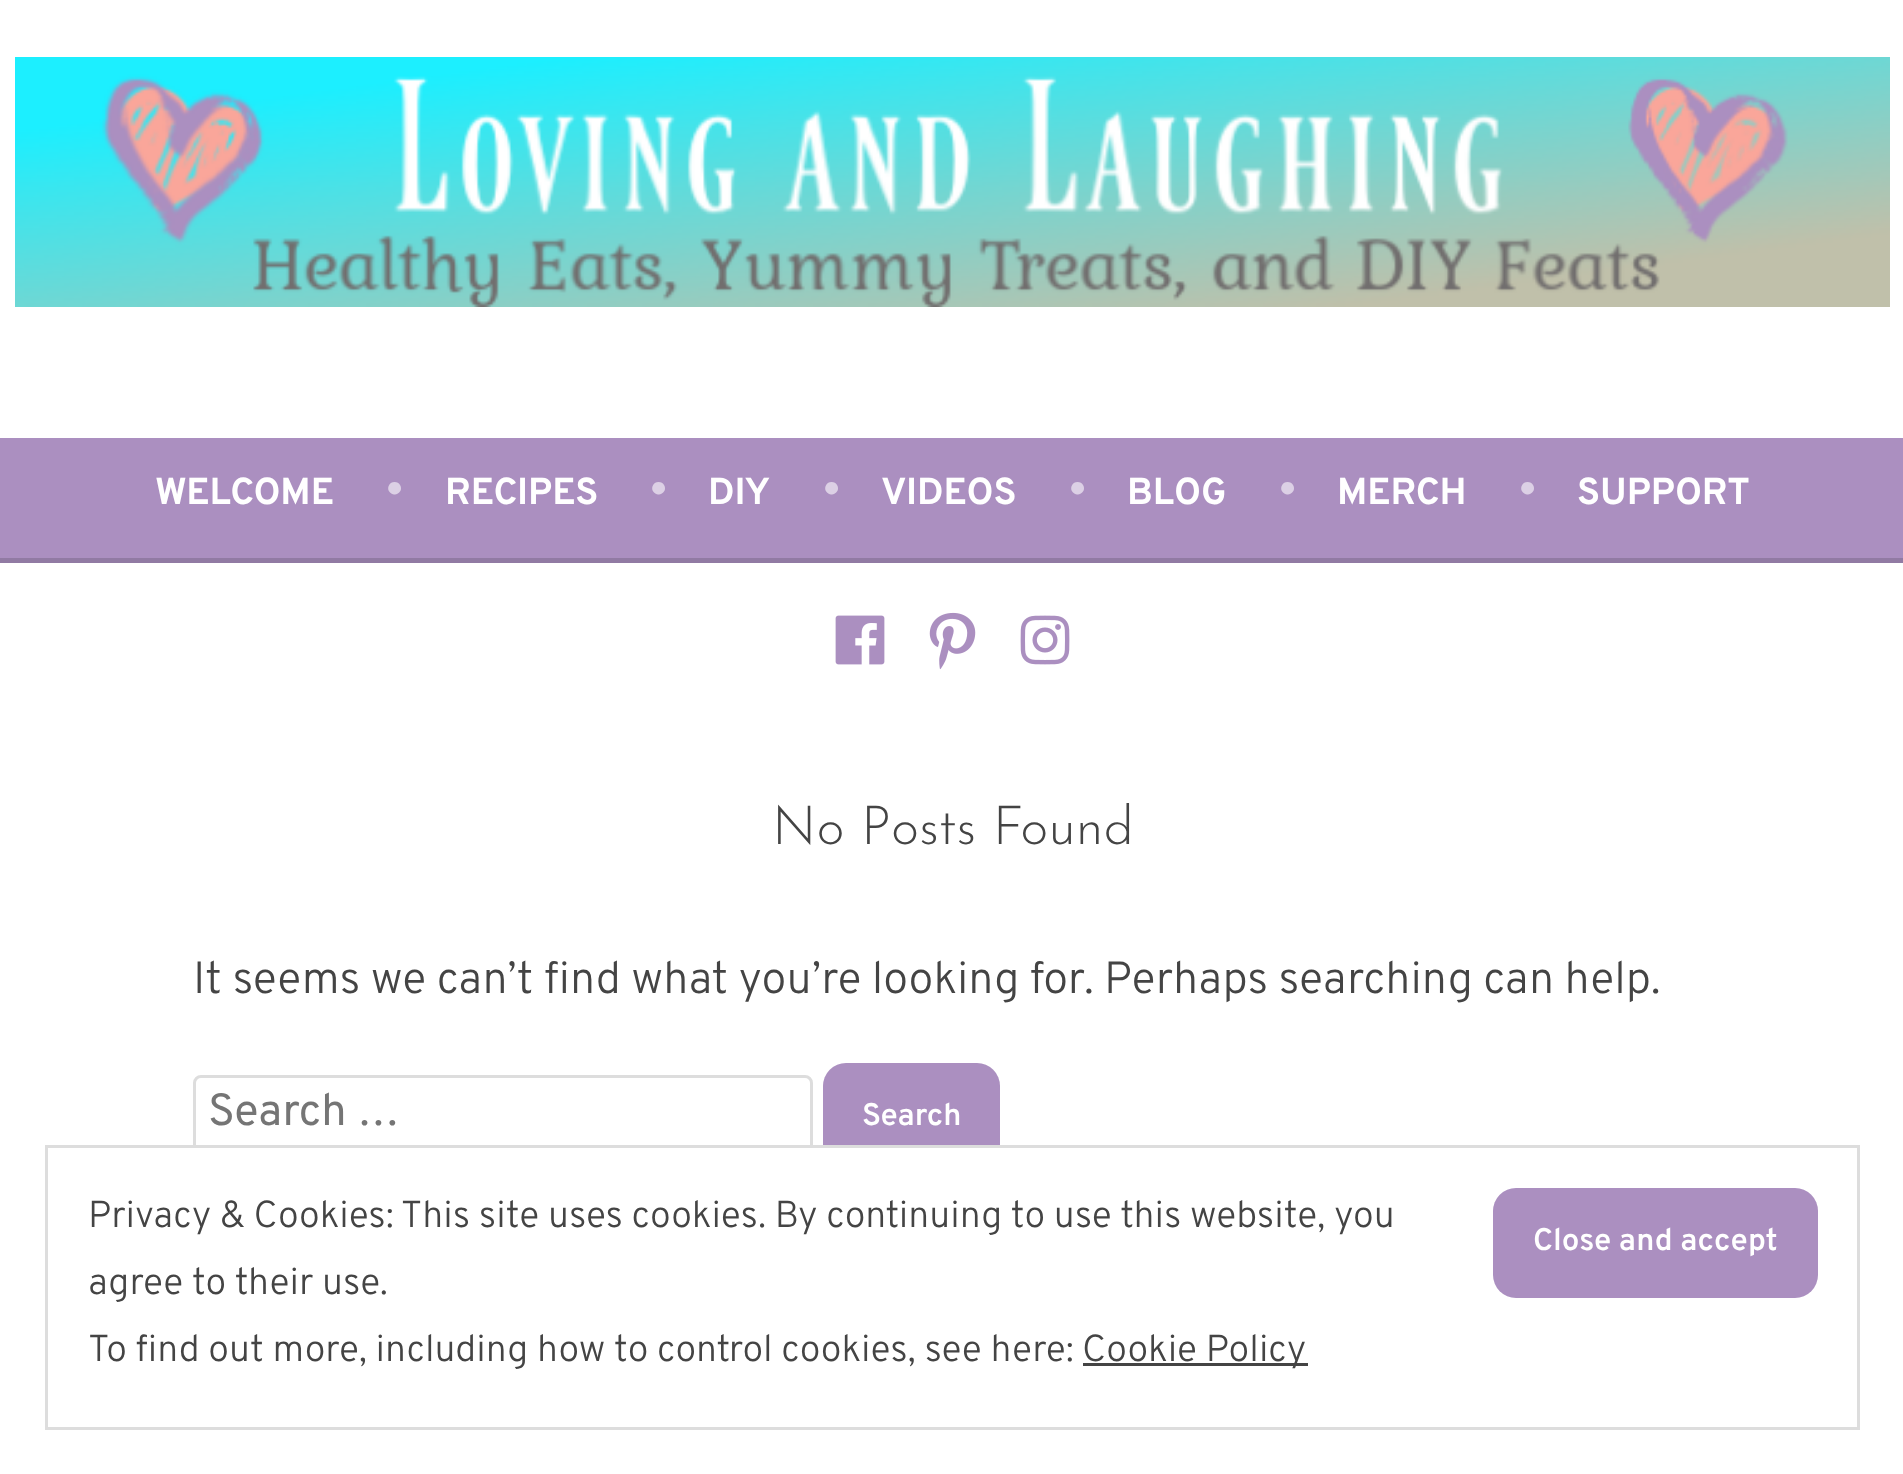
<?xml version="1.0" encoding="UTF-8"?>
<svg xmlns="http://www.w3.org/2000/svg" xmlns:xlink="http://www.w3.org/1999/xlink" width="1903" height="1474">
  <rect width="100%" height="100%" fill="#ffffff" />
  <image x="15" y="57" width="1875" height="250" xlink:href="image1.png" />
  <rect y="438" width="1903" height="120" fill="#ab8fc0" />
  <rect y="558" width="1903" height="5" fill="#917aa3" />
  <image x="835" y="615" width="50" height="50" xlink:href="image2.png" />
  <image x="929" y="612" width="47" height="58" xlink:href="image3.png" />
  <image x="1020" y="615" width="50" height="50" xlink:href="image4.png" />
  <rect x="194.5" y="1076.5" width="617" height="80" rx="6.5" fill="none" stroke="#dddddd" stroke-width="3" />
  <rect x="823" y="1063" width="177" height="112" rx="23" fill="#ab8fc0" />
  <rect x="193" y="1148" width="807" height="27" fill="#ffffff" />
  <rect x="46.5" y="1146.5" width="1812" height="282" fill="none" stroke="#dddddd" stroke-width="3" />
  <rect x="1493" y="1188" width="325" height="110" rx="23" fill="#ab8fc0" />
  <rect x="1083" y="1363" width="225" height="3" fill="#444444" />
  <text x="155" y="504" style="font-family: Overpass; font-size: 37.5px; font-weight: bold; fill: #ffffff">WELCOME</text>
  <text x="385" y="504" style="font-family: Overpass; font-size: 45px; font-weight: bold; fill: #dcd0e5">•</text>
  <text x="445" y="504" style="font-family: Overpass; font-size: 37.5px; font-weight: bold; fill: #ffffff">RECIPES</text>
  <text x="649" y="504" style="font-family: Overpass; font-size: 45px; font-weight: bold; fill: #dcd0e5">•</text>
  <text x="708" y="504" style="font-family: Overpass; font-size: 37.5px; font-weight: bold; fill: #ffffff">DIY</text>
  <text x="822" y="504" style="font-family: Overpass; font-size: 45px; font-weight: bold; fill: #dcd0e5">•</text>
  <text x="881" y="504" style="font-family: Overpass; font-size: 37.5px; font-weight: bold; fill: #ffffff">VIDEOS</text>
  <text x="1068" y="504" style="font-family: Overpass; font-size: 45px; font-weight: bold; fill: #dcd0e5">•</text>
  <text x="1127" y="504" style="font-family: Overpass; font-size: 37.5px; font-weight: bold; fill: #ffffff">BLOG</text>
  <text x="1278" y="504" style="font-family: Overpass; font-size: 45px; font-weight: bold; fill: #dcd0e5">•</text>
  <text x="1337" y="504" style="font-family: Overpass; font-size: 37.5px; font-weight: bold; fill: #ffffff">MERCH</text>
  <text x="1518" y="504" style="font-family: Overpass; font-size: 45px; font-weight: bold; fill: #dcd0e5">•</text>
  <text x="1577" y="504" style="font-family: Overpass; font-size: 37.5px; font-weight: bold; fill: #ffffff">SUPPORT</text>
  <text x="772" y="844" style="font-family: Josefin Sans; font-size: 54px; font-weight: 300; fill: #444444">No Posts Found</text>
  <text x="193" y="993" style="font-family: Overpass; font-size: 45px; font-weight: 300; fill: #444444">It seems we can’t find what you’re looking for. Perhaps searching can help.</text>
  <text x="208" y="1125" style="font-family: Overpass; font-size: 45px; fill: #757575">Search …</text>
  <text x="862" y="1125" style="font-family: Overpass; font-size: 31.25px; font-weight: 600; fill: #ffffff">Search</text>
  <text x="88" y="1227" style="font-family: Overpass; font-size: 37.5px; font-weight: 300; fill: #444444">Privacy &amp; Cookies: This site uses cookies. By continuing to use this website, you</text>
  <text x="1533" y="1250" style="font-family: Overpass; font-size: 31.25px; font-weight: 600; fill: #ffffff">Close and accept</text>
  <text x="88" y="1294" style="font-family: Overpass; font-size: 37.5px; font-weight: 300; fill: #444444">agree to their use.</text>
  <text x="88" y="1361" style="font-family: Overpass; font-size: 37.5px; font-weight: 300; fill: #444444">To find out more, including how to control cookies, see here:</text>
  <text x="1082" y="1361" style="font-family: Overpass; font-size: 37.5px; font-weight: 300; fill: #444444">Cookie Policy</text>
</svg>
